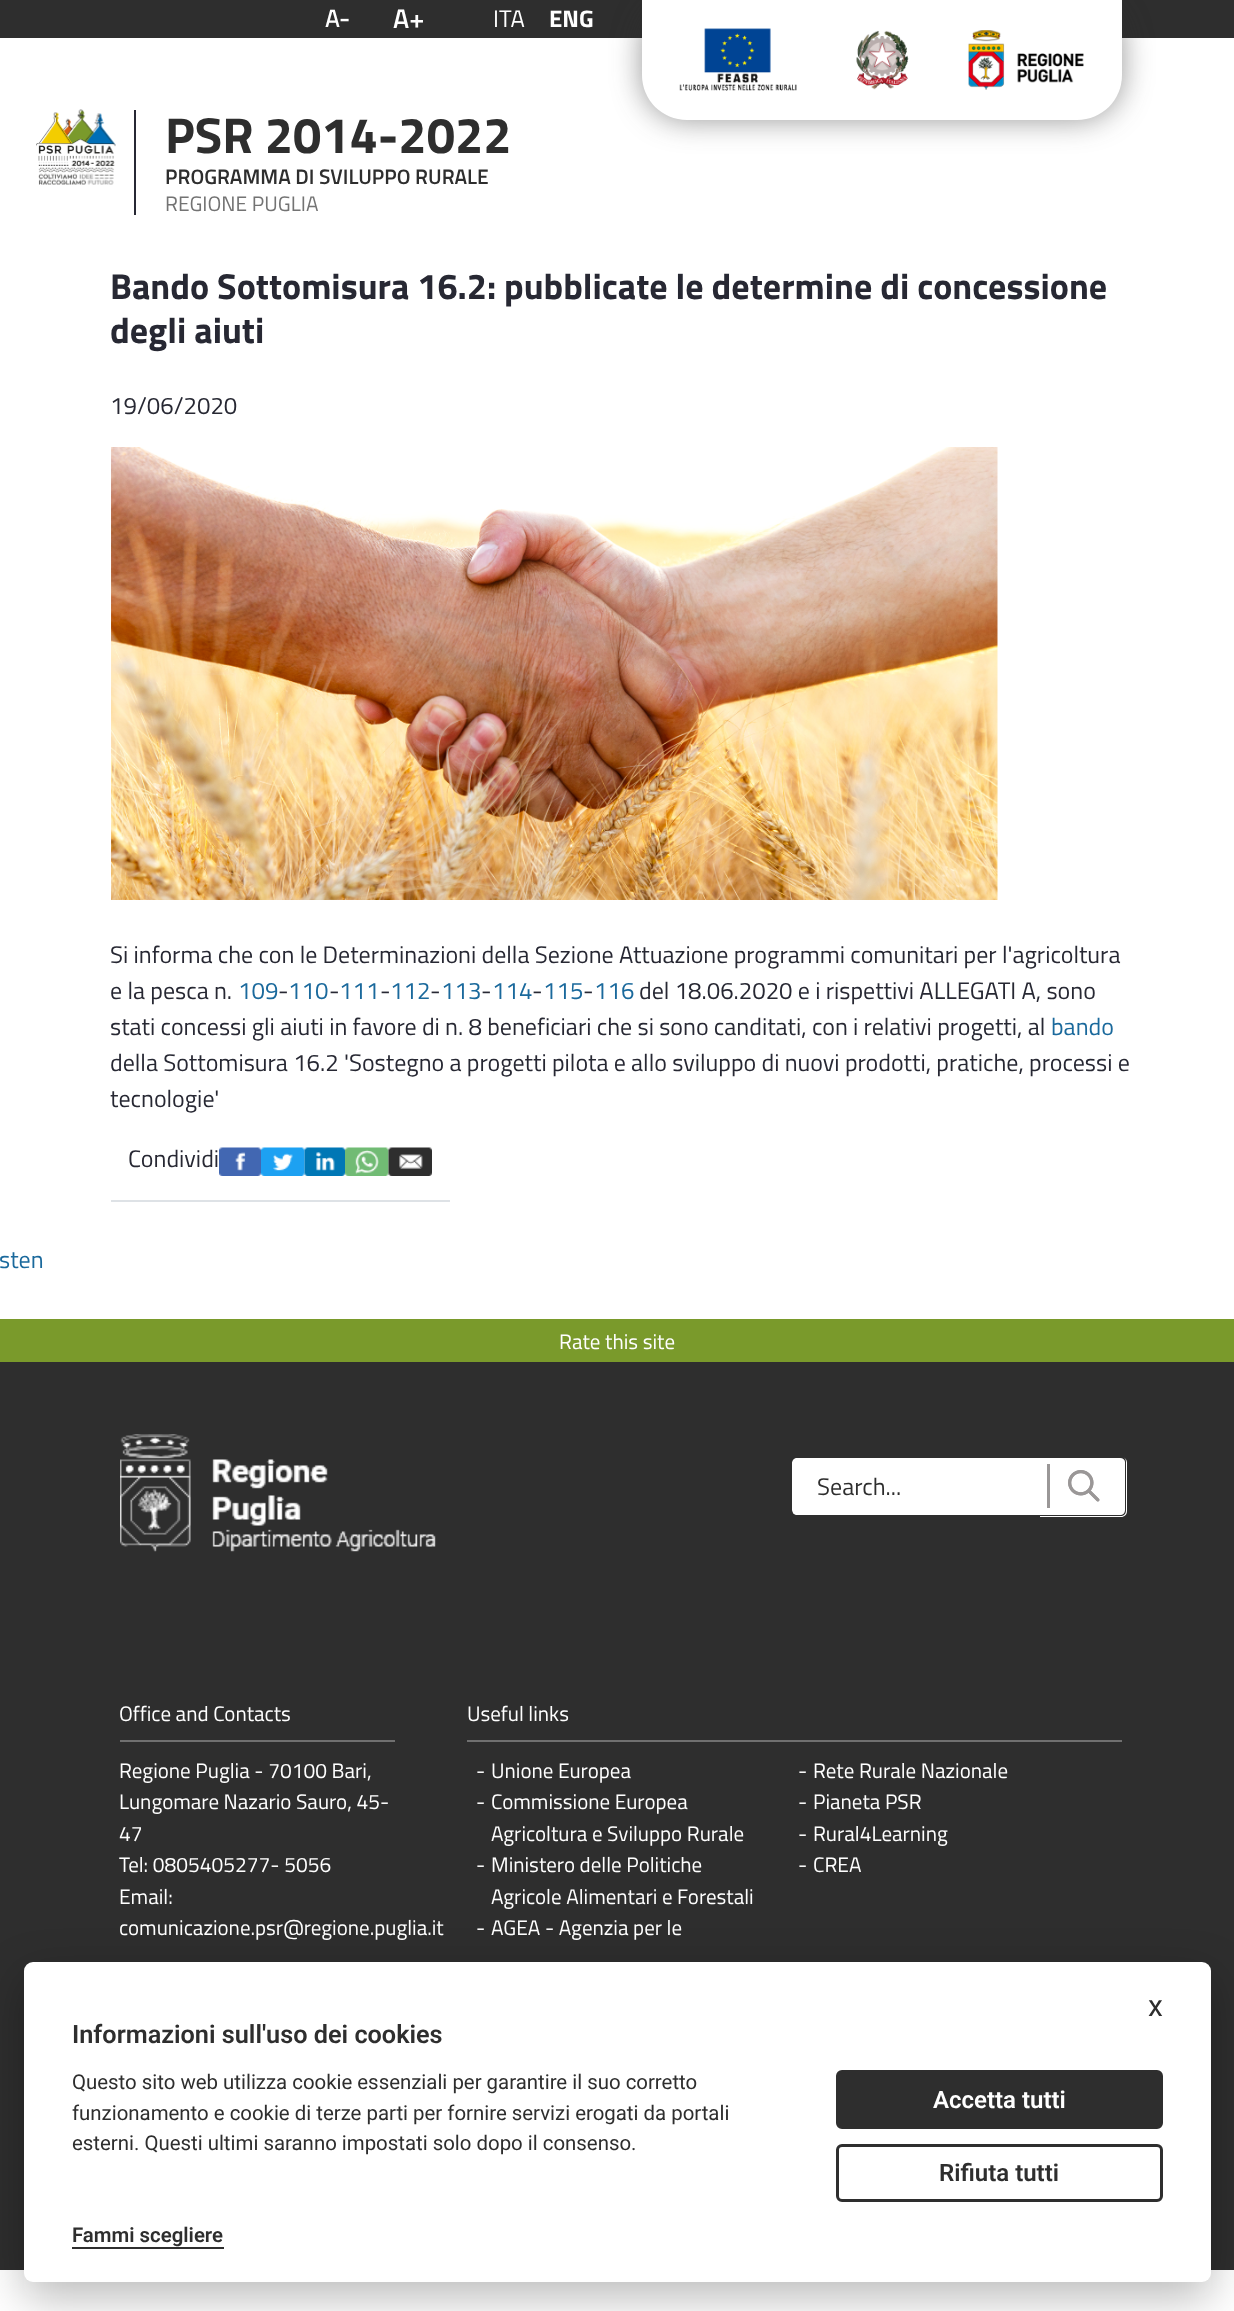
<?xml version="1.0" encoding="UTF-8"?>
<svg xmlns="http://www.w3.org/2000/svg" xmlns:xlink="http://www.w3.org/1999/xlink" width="1234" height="2311">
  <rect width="100%" height="100%" fill="#ffffff" />
  <rect width="1234" height="38" fill="#2e2e2e" />
  <rect x="642" width="480" height="120" rx="45" fill="#2e2e2e" fill-opacity="0.5" filter="blur(15px)" />
  <path d="M 642 0 h 480 v 75 c 0 25 -20 45 -45 45 h -390 c -25 0 -45 -20 -45 -45 z" fill="#ffffff" />
  <image x="679" y="28" width="118" height="63" xlink:href="image1.png" />
  <image x="856" y="30" width="53" height="60" xlink:href="image2.png" />
  <image x="968" y="30" width="116" height="60" xlink:href="image3.png" />
  <rect x="134" y="110" width="2" height="105" fill="#272834" />
  <image x="36" y="109" width="80" height="76" xlink:href="image4.png" />
  <image x="111" y="447" width="887" height="453" xlink:href="image5.png" />
  <rect x="111" y="1200" width="339" height="2" fill="#dee2e6" />
  <image x="219" y="1147" width="42" height="29" xlink:href="image6.png" />
  <image x="261" y="1147" width="44" height="29" xlink:href="image7.png" />
  <image x="304" y="1147" width="41" height="29" xlink:href="image8.png" />
  <image x="345" y="1147" width="44" height="29" xlink:href="image9.png" />
  <image x="388" y="1147" width="44" height="29" xlink:href="image10.png" />
  <rect y="1362" width="1234" height="908" fill="#2e2e2e" />
  <rect y="1319" width="1234" height="43" fill="#7a9a2b" />
  <image x="120" y="1434" width="316" height="118" xlink:href="image11.png" />
  <path d="M 797 1458 h 243 v 57 h -243 c -3 0 -5 -2 -5 -5 v -47 c 0 -3 2 -5 5 -5 z" fill="#ffffff" />
  <path d="M 796 1456 h 244 v 60 h -244 c -3 0 -6 -2 -6 -6 v -48 c 0 -3 3 -6 6 -6 z m 0 2 h 244 v 57 h -244 c -2 0 -4 -2 -4 -5 v -48 c 0 -2 2 -4 4 -4 z" fill="#2e2e2e" fill-rule="evenodd" />
  <path d="M 1040 1457 h 81 c 3.5 0 6 2.5 6 6 v 48 c 0 3.5 -2.5 6 -6 6 h -81 z" fill="#ffffff" />
  <path d="M 1040 1456 h 80 c 4 0 6 3 6 6 v 48 c 0 4 -2 6 -6 6 h -80 z m 0 2 h 80 c 3 0 5 2 5 4 v 48 c 0 3 -2 5 -5 5 h -80 z" fill="#2e2e2e" fill-rule="evenodd" />
  <rect x="1047" y="1464" width="3" height="44" fill="#9a9797" />
  <image x="1068" y="1470" width="32" height="32" xlink:href="image12.png" />
  <rect x="120" y="1740" width="275" height="2" fill="#707070" />
  <rect x="467" y="1740" width="655" height="2" fill="#707070" />
  <rect x="24" y="1977" width="1187" height="320" rx="9" fill="#020203" fill-opacity="0.28" filter="blur(22.5px)" />
  <rect x="24" y="1962" width="1187" height="320" rx="9" fill="#ffffff" />
  <rect x="72" y="2247" width="152" height="2" fill="#2e2e2e" />
  <rect x="837.5" y="2071.5" width="324" height="56" rx="4.5" fill="#2e2e2e" stroke="#2e2e2e" stroke-width="3" />
  <rect x="837.5" y="2145.5" width="324" height="55" rx="4.5" fill="none" stroke="#2e2e2e" stroke-width="3" />
  <text x="325" y="27" style="font-family: Titillium Web; font-size: 24px; font-weight: bold; fill: #ffffff">A-</text>
  <text x="393" y="28" style="font-family: Titillium Web; font-size: 27px; font-weight: 600; fill: #ffffff">A+</text>
  <text x="493" y="27" style="font-family: Titillium Web; font-size: 24px; fill: #ffffff">ITA</text>
  <text x="549" y="27" style="font-family: 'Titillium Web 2'; font-size: 24px; font-weight: bold; fill: #ffffff">ENG</text>
  <text x="165" y="153" style="font-family: 'Titillium Web 2'; font-size: 50.5px; font-weight: bold; fill: #2e2e2e">PSR 2014-2022</text>
  <text x="165" y="184" style="font-family: Titillium Web; font-size: 21px; font-weight: 600; fill: #2e2e2e">PROGRAMMA DI SVILUPPO RURALE</text>
  <text x="165" y="211" style="font-family: Titillium Web; font-size: 21px; fill: #737373">REGIONE PUGLIA</text>
  <text x="110" y="299" style="font-family: 'Titillium Web 2'; font-size: 36px; font-weight: bold; fill: #272833">Bando Sottomisura 16.2: pubblicate le determine di concessione</text>
  <text x="110" y="343" style="font-family: 'Titillium Web 2'; font-size: 36px; font-weight: bold; fill: #272833">degli aiuti</text>
  <text x="110" y="414" style="font-family: Titillium Web; font-size: 24px; fill: #272833">19/06/2020</text>
  <text x="110" y="963" style="font-family: Titillium Web; font-size: 24px; fill: #272833">Si informa che con le Determinazioni della Sezione Attuazione programmi comunitari per l'agricoltura</text>
  <text x="110" y="999" style="font-family: Titillium Web; font-size: 24px; fill: #272833">e la pesca n.</text>
  <text x="238" y="999" style="font-family: Titillium Web; font-size: 24px; fill: #1a699c">109</text>
  <text x="278" y="999" style="font-family: Titillium Web; font-size: 24px; fill: #272833">-</text>
  <text x="288" y="999" style="font-family: Titillium Web; font-size: 24px; fill: #1a699c">110</text>
  <text x="329" y="999" style="font-family: Titillium Web; font-size: 24px; fill: #272833">-</text>
  <text x="339" y="999" style="font-family: Titillium Web; font-size: 24px; fill: #1a699c">111</text>
  <text x="380" y="999" style="font-family: Titillium Web; font-size: 24px; fill: #272833">-</text>
  <text x="390" y="999" style="font-family: Titillium Web; font-size: 24px; fill: #1a699c">112</text>
  <text x="430" y="999" style="font-family: Titillium Web; font-size: 24px; fill: #272833">-</text>
  <text x="441" y="999" style="font-family: Titillium Web; font-size: 24px; fill: #1a699c">113</text>
  <text x="481" y="999" style="font-family: Titillium Web; font-size: 24px; fill: #272833">-</text>
  <text x="492" y="999" style="font-family: Titillium Web; font-size: 24px; fill: #1a699c">114</text>
  <text x="532" y="999" style="font-family: Titillium Web; font-size: 24px; fill: #272833">-</text>
  <text x="543" y="999" style="font-family: Titillium Web; font-size: 24px; fill: #1a699c">115</text>
  <text x="583" y="999" style="font-family: Titillium Web; font-size: 24px; fill: #272833">-</text>
  <text x="594" y="999" style="font-family: Titillium Web; font-size: 24px; fill: #1a699c">116</text>
  <text x="639" y="999" style="font-family: Titillium Web; font-size: 24px; fill: #272833">del 18.06.2020 e i rispettivi ALLEGATI A, sono</text>
  <text x="110" y="1035" style="font-family: Titillium Web; font-size: 24px; fill: #272833">stati concessi gli aiuti in favore di n. 8 beneficiari che si sono canditati, con i relativi progetti, al</text>
  <text x="1051" y="1035" style="font-family: Titillium Web; font-size: 24px; fill: #1a699c">bando</text>
  <text x="110" y="1071" style="font-family: Titillium Web; font-size: 24px; fill: #272833">della Sottomisura 16.2 'Sostegno a progetti pilota e allo sviluppo di nuovi prodotti, pratiche, processi e</text>
  <text x="110" y="1107" style="font-family: Titillium Web; font-size: 24px; fill: #272833">tecnologie'</text>
  <text x="128" y="1167" style="font-family: Titillium Web; font-size: 24px; fill: #272833">Condividi</text>
  <text x="-1" y="1268" style="font-family: Titillium Web; font-size: 24px; fill: #1a699c">sten</text>
  <text x="559" y="1349" style="font-family: Titillium Web; font-size: 21px; fill: #ffffff">Rate this site</text>
  <text x="817" y="1495" style="font-family: Titillium Web; font-size: 24px; fill: #2e2e2e">Search...</text>
  <text x="119" y="1721" style="font-family: Titillium Web; font-size: 21px; fill: #ffffff">Office and Contacts</text>
  <text x="119" y="1778" style="font-family: Titillium Web; font-size: 21px; fill: #ffffff">Regione Puglia - 70100 Bari,</text>
  <text x="119" y="1809" style="font-family: Titillium Web; font-size: 21px; fill: #ffffff">Lungomare Nazario Sauro, 45-</text>
  <text x="119" y="1841" style="font-family: Titillium Web; font-size: 21px; fill: #ffffff">47</text>
  <text x="119" y="1872" style="font-family: Titillium Web; font-size: 21px; fill: #ffffff">Tel: 0805405277- 5056</text>
  <text x="119" y="1904" style="font-family: Titillium Web; font-size: 21px; fill: #ffffff">Email:</text>
  <text x="119" y="1935" style="font-family: Titillium Web; font-size: 21px; fill: #ffffff">comunicazione.psr@regione.puglia.it</text>
  <text x="467" y="1721" style="font-family: Titillium Web; font-size: 21px; fill: #ffffff">Useful links</text>
  <text x="476" y="1778" style="font-family: Titillium Web; font-size: 21px; fill: #ffffff">-</text>
  <text x="491" y="1778" style="font-family: Titillium Web; font-size: 21px; fill: #ffffff">Unione Europea</text>
  <text x="476" y="1809" style="font-family: Titillium Web; font-size: 21px; fill: #ffffff">-</text>
  <text x="491" y="1809" style="font-family: Titillium Web; font-size: 21px; fill: #ffffff">Commissione Europea</text>
  <text x="491" y="1841" style="font-family: Titillium Web; font-size: 21px; fill: #ffffff">Agricoltura e Sviluppo Rurale</text>
  <text x="476" y="1872" style="font-family: Titillium Web; font-size: 21px; fill: #ffffff">-</text>
  <text x="491" y="1872" style="font-family: Titillium Web; font-size: 21px; fill: #ffffff">Ministero delle Politiche</text>
  <text x="491" y="1904" style="font-family: Titillium Web; font-size: 21px; fill: #ffffff">Agricole Alimentari e Forestali</text>
  <text x="476" y="1935" style="font-family: Titillium Web; font-size: 21px; fill: #ffffff">-</text>
  <text x="491" y="1935" style="font-family: Titillium Web; font-size: 21px; fill: #ffffff">AGEA - Agenzia per le</text>
  <text x="798" y="1778" style="font-family: Titillium Web; font-size: 21px; fill: #ffffff">-</text>
  <text x="813" y="1778" style="font-family: Titillium Web; font-size: 21px; fill: #ffffff">Rete Rurale Nazionale</text>
  <text x="798" y="1809" style="font-family: Titillium Web; font-size: 21px; fill: #ffffff">-</text>
  <text x="813" y="1809" style="font-family: Titillium Web; font-size: 21px; fill: #ffffff">Pianeta PSR</text>
  <text x="798" y="1841" style="font-family: Titillium Web; font-size: 21px; fill: #ffffff">-</text>
  <text x="813" y="1841" style="font-family: Titillium Web; font-size: 21px; fill: #ffffff">Rural4Learning</text>
  <text x="798" y="1872" style="font-family: Titillium Web; font-size: 21px; fill: #ffffff">-</text>
  <text x="813" y="1872" style="font-family: Titillium Web; font-size: 21px; fill: #ffffff">CREA</text>
  <text x="1148" y="2016" style="font-family: Roboto; font-size: 30px; fill: #2e2e2e">x</text>
  <text x="72" y="2043" style="font-family: Roboto; font-size: 25.25px; font-weight: 600; fill: #2e2e2e">Informazioni sull'uso dei cookies</text>
  <text x="72" y="2089" style="font-family: Roboto; font-size: 20.4px; fill: #2e2e2e">Questo sito web utilizza cookie essenziali per garantire il suo corretto</text>
  <text x="72" y="2120" style="font-family: Roboto; font-size: 20.4px; fill: #2e2e2e">funzionamento e cookie di terze parti per fornire servizi erogati da portali</text>
  <text x="72" y="2150" style="font-family: Roboto; font-size: 20.4px; fill: #2e2e2e">esterni. Questi ultimi saranno impostati solo dopo il consenso.</text>
  <text x="72" y="2242" style="font-family: Roboto; font-size: 20.4px; font-weight: 600; fill: #2e2e2e">Fammi scegliere</text>
  <text x="933" y="2108" style="font-family: Roboto; font-size: 24px; font-weight: 600; fill: #ffffff">Accetta tutti</text>
  <text x="939" y="2181" style="font-family: Roboto; font-size: 24px; font-weight: 600; fill: #2e2e2e">Rifiuta tutti</text>
</svg>
